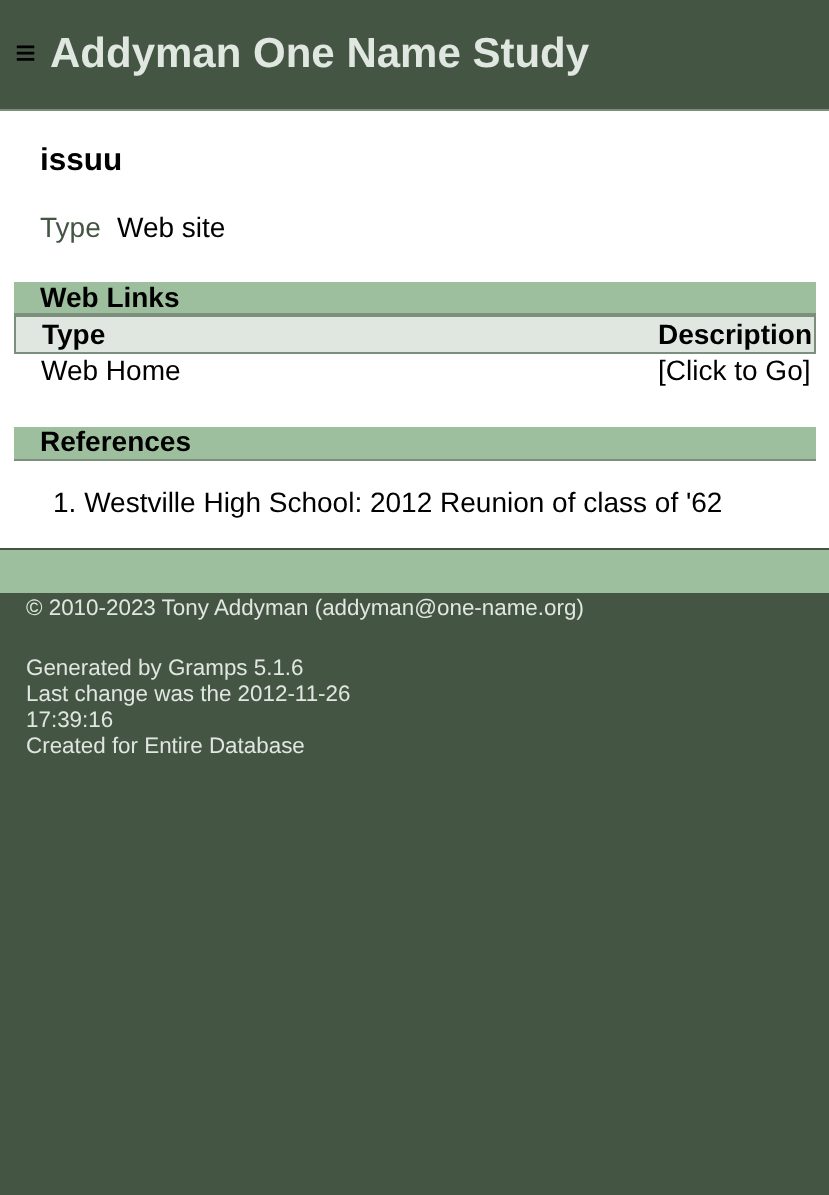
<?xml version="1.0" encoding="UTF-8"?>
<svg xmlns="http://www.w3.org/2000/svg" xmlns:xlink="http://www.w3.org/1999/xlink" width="829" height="1195">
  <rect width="100%" height="100%" fill="#445544" />
  <rect y="111" width="829" height="437" fill="#ffffff" />
  <rect y="109" width="829" height="2" fill="#7c8f7c" />
  <rect x="14" y="282" width="802" height="31" fill="#9dbf9d" />
  <rect x="14" y="313" width="802" height="2" fill="#7c8f7c" />
  <rect x="16" y="317" width="798" height="35" fill="#e0e6e0" />
  <rect x="14" y="315" width="802" height="2" fill="#7c8f7c" />
  <rect x="814" y="315" width="2" height="39" fill="#7c8f7c" />
  <rect x="14" y="352" width="802" height="2" fill="#7c8f7c" />
  <rect x="14" y="315" width="2" height="39" fill="#7c8f7c" />
  <rect x="14" y="427" width="802" height="32" fill="#9dbf9d" />
  <rect x="14" y="459" width="802" height="2" fill="#7c8f7c" />
  <rect y="550" width="829" height="43" fill="#9dbf9d" />
  <text x="15" y="65" style="font-family: Liberation Sans; font-size: 36px; fill: #000000">≡</text>
  <text x="50" y="67" style="font-family: Liberation Sans; font-size: 42px; font-weight: bold; fill: #e0e6e0">Addyman One Name Study</text>
  <text x="40" y="170" style="font-family: Liberation Sans; font-size: 31.5px; font-weight: bold; fill: #000000">issuu</text>
  <text x="40" y="237" style="font-family: Liberation Sans; font-size: 28px; fill: #445544">Type</text>
  <text x="117" y="237" style="font-family: Liberation Sans; font-size: 28px; fill: #000000">Web site</text>
  <text x="40" y="307" style="font-family: Liberation Sans; font-size: 28px; font-weight: bold; fill: #000000">Web Links</text>
  <text x="42" y="344" style="font-family: Liberation Sans; font-size: 28px; font-weight: bold; fill: #000000">Type</text>
  <text x="658" y="344" style="font-family: Liberation Sans; font-size: 28px; font-weight: bold; fill: #000000">Description</text>
  <text x="41" y="380" style="font-family: Liberation Sans; font-size: 28px; fill: #000000">Web Home</text>
  <text x="658" y="380" style="font-family: Liberation Sans; font-size: 28px; fill: #000000">[Click to Go]</text>
  <text x="40" y="451" style="font-family: Liberation Sans; font-size: 28px; font-weight: bold; fill: #000000">References</text>
  <text x="53" y="512" style="font-family: Liberation Sans; font-size: 28px; fill: #000000">1. Westville High School: 2012 Reunion of class of '62</text>
  <text x="26" y="615" style="font-family: Liberation Sans; font-size: 22.4px; fill: #e0e6e0">© 2010-2023 Tony Addyman (addyman@one-name.org)</text>
  <text x="26" y="675" style="font-family: Liberation Sans; font-size: 22.4px; fill: #e0e6e0">Generated by Gramps 5.1.6</text>
  <text x="26" y="701" style="font-family: Liberation Sans; font-size: 22.4px; fill: #e0e6e0">Last change was the 2012-11-26</text>
  <text x="26" y="727" style="font-family: Liberation Sans; font-size: 22.4px; fill: #e0e6e0">17:39:16</text>
  <text x="26" y="753" style="font-family: Liberation Sans; font-size: 22.4px; fill: #e0e6e0">Created for Entire Database</text>
</svg>
